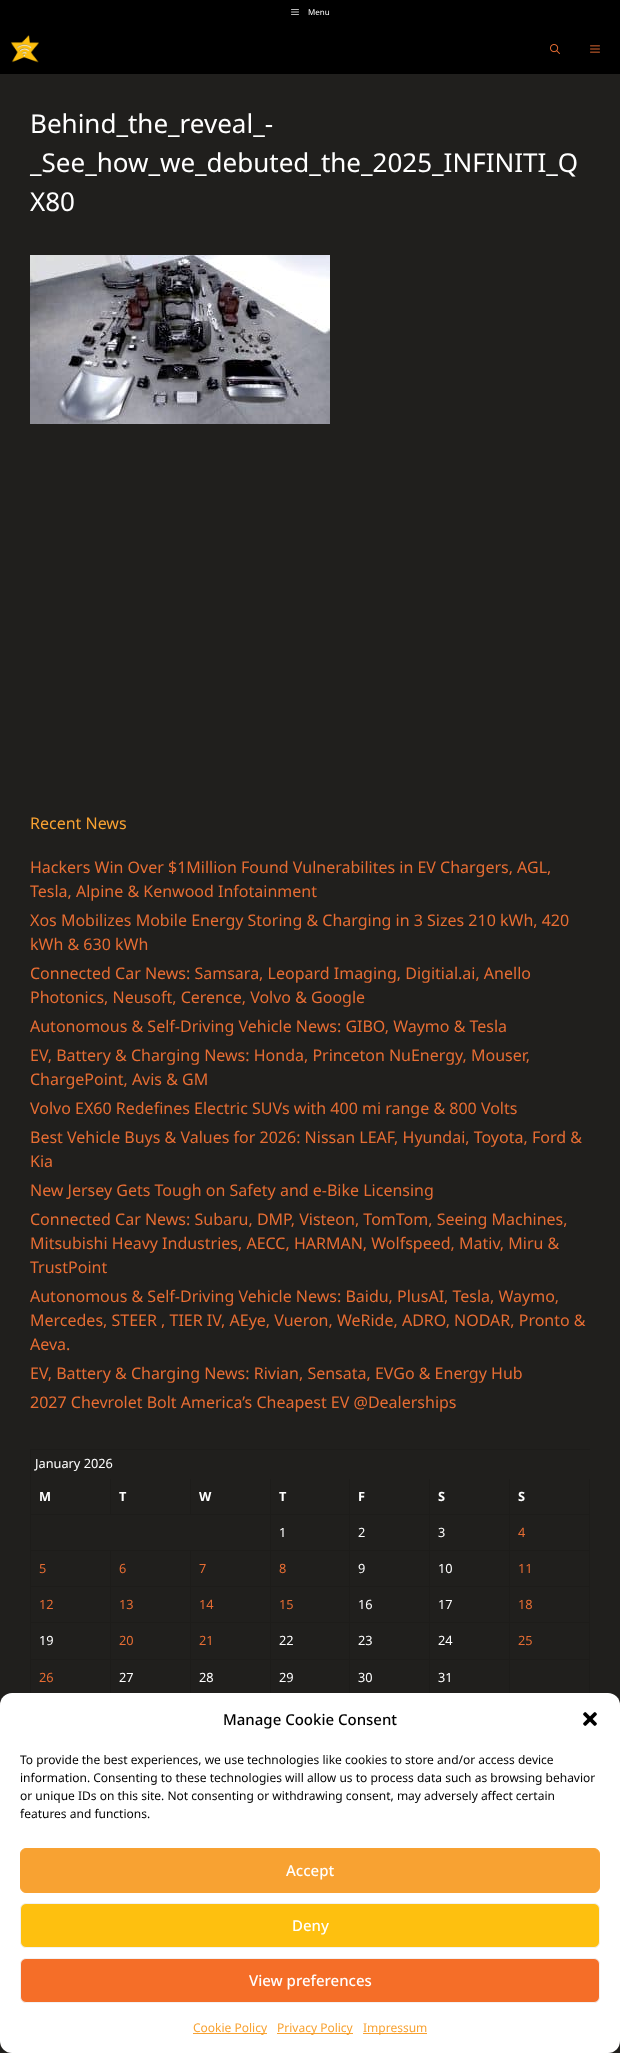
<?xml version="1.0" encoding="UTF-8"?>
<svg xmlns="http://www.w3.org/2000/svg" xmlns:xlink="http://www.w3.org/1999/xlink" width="620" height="2053">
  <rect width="100%" height="100%" fill="#000000" />
  <image x="291" y="9" width="8" height="6" xlink:href="image1.png" />
  <image x="11" y="35" width="28" height="28" xlink:href="image2.png" />
  <image x="550" y="44" width="10" height="10" xlink:href="image3.png" />
  <image x="590" y="45" width="10" height="8" xlink:href="image4.png" />
  <rect y="74" width="620" height="1979" fill="#201f1d" />
  <image x="30" y="255" width="300" height="169" xlink:href="image5.png" />
  <path d="M 30 1449 h 560 v 1 h -559 z" fill="#1d1c1a" />
  <path d="M 30 1696 v -247 l 1 1 v 246 z" fill="#1d1c1a" />
  <path d="M 111 1479 v 36 l -1 -1 v -35 z" fill="#1d1c1a" />
  <path d="M 111 1515 h -80 v -1 h 79 z" fill="#1d1c1a" />
  <path d="M 191 1479 v 36 l -1 -1 v -35 z" fill="#1d1c1a" />
  <path d="M 191 1515 h -80 v -1 h 79 z" fill="#1d1c1a" />
  <path d="M 271 1479 v 36 l -1 -1 v -35 z" fill="#1d1c1a" />
  <path d="M 271 1515 h -80 v -1 h 79 z" fill="#1d1c1a" />
  <path d="M 350 1479 v 36 l -1 -1 v -35 z" fill="#1d1c1a" />
  <path d="M 350 1515 h -79 v -1 h 78 z" fill="#1d1c1a" />
  <path d="M 430 1479 v 36 l -1 -1 v -35 z" fill="#1d1c1a" />
  <path d="M 430 1515 h -80 v -1 h 79 z" fill="#1d1c1a" />
  <path d="M 510 1479 v 36 l -1 -1 v -35 z" fill="#1d1c1a" />
  <path d="M 510 1515 h -80 v -1 h 79 z" fill="#1d1c1a" />
  <path d="M 590 1479 v 36 l -1 -1 v -35 z" fill="#1d1c1a" />
  <path d="M 590 1515 h -80 v -1 h 79 z" fill="#1d1c1a" />
  <path d="M 271 1515 v 36 l -1 -1 v -35 z" fill="#1d1c1a" />
  <path d="M 271 1551 h -240 v -1 h 239 z" fill="#1d1c1a" />
  <path d="M 350 1515 v 36 l -1 -1 v -35 z" fill="#1d1c1a" />
  <path d="M 350 1551 h -79 v -1 h 78 z" fill="#1d1c1a" />
  <path d="M 430 1515 v 36 l -1 -1 v -35 z" fill="#1d1c1a" />
  <path d="M 430 1551 h -80 v -1 h 79 z" fill="#1d1c1a" />
  <path d="M 510 1515 v 36 l -1 -1 v -35 z" fill="#1d1c1a" />
  <path d="M 510 1551 h -80 v -1 h 79 z" fill="#1d1c1a" />
  <path d="M 590 1515 v 36 l -1 -1 v -35 z" fill="#1d1c1a" />
  <path d="M 590 1551 h -80 v -1 h 79 z" fill="#1d1c1a" />
  <path d="M 111 1551 v 36 l -1 -1 v -35 z" fill="#1d1c1a" />
  <path d="M 111 1587 h -80 v -1 h 79 z" fill="#1d1c1a" />
  <path d="M 191 1551 v 36 l -1 -1 v -35 z" fill="#1d1c1a" />
  <path d="M 191 1587 h -80 v -1 h 79 z" fill="#1d1c1a" />
  <path d="M 271 1551 v 36 l -1 -1 v -35 z" fill="#1d1c1a" />
  <path d="M 271 1587 h -80 v -1 h 79 z" fill="#1d1c1a" />
  <path d="M 350 1551 v 36 l -1 -1 v -35 z" fill="#1d1c1a" />
  <path d="M 350 1587 h -79 v -1 h 78 z" fill="#1d1c1a" />
  <path d="M 430 1551 v 36 l -1 -1 v -35 z" fill="#1d1c1a" />
  <path d="M 430 1587 h -80 v -1 h 79 z" fill="#1d1c1a" />
  <path d="M 510 1551 v 36 l -1 -1 v -35 z" fill="#1d1c1a" />
  <path d="M 510 1587 h -80 v -1 h 79 z" fill="#1d1c1a" />
  <path d="M 590 1551 v 36 l -1 -1 v -35 z" fill="#1d1c1a" />
  <path d="M 590 1587 h -80 v -1 h 79 z" fill="#1d1c1a" />
  <path d="M 111 1587 v 36 l -1 -1 v -35 z" fill="#1d1c1a" />
  <path d="M 111 1623 h -80 v -1 h 79 z" fill="#1d1c1a" />
  <path d="M 191 1587 v 36 l -1 -1 v -35 z" fill="#1d1c1a" />
  <path d="M 191 1623 h -80 v -1 h 79 z" fill="#1d1c1a" />
  <path d="M 271 1587 v 36 l -1 -1 v -35 z" fill="#1d1c1a" />
  <path d="M 271 1623 h -80 v -1 h 79 z" fill="#1d1c1a" />
  <path d="M 350 1587 v 36 l -1 -1 v -35 z" fill="#1d1c1a" />
  <path d="M 350 1623 h -79 v -1 h 78 z" fill="#1d1c1a" />
  <path d="M 430 1587 v 36 l -1 -1 v -35 z" fill="#1d1c1a" />
  <path d="M 430 1623 h -80 v -1 h 79 z" fill="#1d1c1a" />
  <path d="M 510 1587 v 36 l -1 -1 v -35 z" fill="#1d1c1a" />
  <path d="M 510 1623 h -80 v -1 h 79 z" fill="#1d1c1a" />
  <path d="M 590 1587 v 36 l -1 -1 v -35 z" fill="#1d1c1a" />
  <path d="M 590 1623 h -80 v -1 h 79 z" fill="#1d1c1a" />
  <path d="M 111 1623 v 37 l -1 -1 v -36 z" fill="#1d1c1a" />
  <path d="M 111 1660 h -80 v -1 h 79 z" fill="#1d1c1a" />
  <path d="M 191 1623 v 37 l -1 -1 v -36 z" fill="#1d1c1a" />
  <path d="M 191 1660 h -80 v -1 h 79 z" fill="#1d1c1a" />
  <path d="M 271 1623 v 37 l -1 -1 v -36 z" fill="#1d1c1a" />
  <path d="M 271 1660 h -80 v -1 h 79 z" fill="#1d1c1a" />
  <path d="M 350 1623 v 37 l -1 -1 v -36 z" fill="#1d1c1a" />
  <path d="M 350 1660 h -79 v -1 h 78 z" fill="#1d1c1a" />
  <path d="M 430 1623 v 37 l -1 -1 v -36 z" fill="#1d1c1a" />
  <path d="M 430 1660 h -80 v -1 h 79 z" fill="#1d1c1a" />
  <path d="M 510 1623 v 37 l -1 -1 v -36 z" fill="#1d1c1a" />
  <path d="M 510 1660 h -80 v -1 h 79 z" fill="#1d1c1a" />
  <path d="M 590 1623 v 37 l -1 -1 v -36 z" fill="#1d1c1a" />
  <path d="M 590 1660 h -80 v -1 h 79 z" fill="#1d1c1a" />
  <path d="M 111 1660 v 36 l -1 -1 v -35 z" fill="#1d1c1a" />
  <path d="M 191 1660 v 36 l -1 -1 v -35 z" fill="#1d1c1a" />
  <path d="M 271 1660 v 36 l -1 -1 v -35 z" fill="#1d1c1a" />
  <path d="M 350 1660 v 36 l -1 -1 v -35 z" fill="#1d1c1a" />
  <path d="M 430 1660 v 36 l -1 -1 v -35 z" fill="#1d1c1a" />
  <path d="M 510 1660 v 36 l -1 -1 v -35 z" fill="#1d1c1a" />
  <path d="M 590 1660 v 36 l -1 -1 v -35 z" fill="#1d1c1a" />
  <rect y="1693" width="620" height="360" rx="12" fill="#ffffff" />
  <image x="583" y="1712" width="14" height="14" xlink:href="image6.png" />
  <rect x="20.5" y="1848.5" width="579" height="44" rx="5.5" fill="#f8a232" stroke="#f8a232" />
  <rect x="20.5" y="1903.5" width="579" height="44" rx="5.5" fill="#fec00f" stroke="#f2f2f2" />
  <rect x="20.5" y="1958.5" width="579" height="44" rx="5.5" fill="#f56e28" stroke="#f2f2f2" />
  <rect x="193" y="2033" width="74" height="1" fill="#f8a232" />
  <rect x="277" y="2033" width="76" height="1" fill="#f8a232" />
  <rect x="363" y="2033" width="64" height="1" fill="#f8a232" />
  <text x="308" y="15" style="font-family: Noto Sans; font-size: 8px; fill: #ffffff">Menu</text>
  <text x="30" y="133" style="font-family: Noto Sans; font-size: 26px; fill: #ffffff">Behind_the_reveal_-</text>
  <text x="30" y="172" style="font-family: Noto Sans; font-size: 26px; fill: #ffffff">_See_how_we_debuted_the_2025_INFINITI_Q</text>
  <text x="30" y="211" style="font-family: Noto Sans; font-size: 26px; fill: #ffffff">X80</text>
  <text x="30" y="829" style="font-family: Noto Sans; font-size: 16px; fill: #f8a232">Recent News</text>
  <text x="30" y="873" style="font-family: Noto Sans; font-size: 16px; fill: #e76d33">Hackers Win Over $1Million Found Vulnerabilites in EV Chargers, AGL,</text>
  <text x="30" y="897" style="font-family: Noto Sans; font-size: 16px; fill: #e76d33">Tesla, Alpine &amp; Kenwood Infotainment</text>
  <text x="30" y="926" style="font-family: Noto Sans; font-size: 16px; fill: #e76d33">Xos Mobilizes Mobile Energy Storing &amp; Charging in 3 Sizes 210 kWh, 420</text>
  <text x="30" y="950" style="font-family: Noto Sans; font-size: 16px; fill: #e76d33">kWh &amp; 630 kWh</text>
  <text x="30" y="979" style="font-family: Noto Sans; font-size: 16px; fill: #e76d33">Connected Car News: Samsara, Leopard Imaging, Digitial.ai, Anello</text>
  <text x="30" y="1003" style="font-family: Noto Sans; font-size: 16px; fill: #e76d33">Photonics, Neusoft, Cerence, Volvo &amp; Google</text>
  <text x="30" y="1032" style="font-family: Noto Sans; font-size: 16px; fill: #e76d33">Autonomous &amp; Self-Driving Vehicle News: GIBO, Waymo &amp; Tesla</text>
  <text x="30" y="1061" style="font-family: Noto Sans; font-size: 16px; fill: #e76d33">EV, Battery &amp; Charging News: Honda, Princeton NuEnergy, Mouser,</text>
  <text x="30" y="1085" style="font-family: Noto Sans; font-size: 16px; fill: #e76d33">ChargePoint, Avis &amp; GM</text>
  <text x="30" y="1114" style="font-family: Noto Sans; font-size: 16px; fill: #e76d33">Volvo EX60 Redefines Electric SUVs with 400 mi range &amp; 800 Volts</text>
  <text x="30" y="1143" style="font-family: Noto Sans; font-size: 16px; fill: #e76d33">Best Vehicle Buys &amp; Values for 2026: Nissan LEAF, Hyundai, Toyota, Ford &amp;</text>
  <text x="30" y="1167" style="font-family: Noto Sans; font-size: 16px; fill: #e76d33">Kia</text>
  <text x="30" y="1196" style="font-family: Noto Sans; font-size: 16px; fill: #e76d33">New Jersey Gets Tough on Safety and e-Bike Licensing</text>
  <text x="30" y="1225" style="font-family: Noto Sans; font-size: 16px; fill: #e76d33">Connected Car News: Subaru, DMP, Visteon, TomTom, Seeing Machines,</text>
  <text x="30" y="1249" style="font-family: Noto Sans; font-size: 16px; fill: #e76d33">Mitsubishi Heavy Industries, AECC, HARMAN, Wolfspeed, Mativ, Miru &amp;</text>
  <text x="30" y="1273" style="font-family: Noto Sans; font-size: 16px; fill: #e76d33">TrustPoint</text>
  <text x="30" y="1302" style="font-family: Noto Sans; font-size: 16px; fill: #e76d33">Autonomous &amp; Self-Driving Vehicle News: Baidu, PlusAI, Tesla, Waymo,</text>
  <text x="30" y="1326" style="font-family: Noto Sans; font-size: 16px; fill: #e76d33">Mercedes, STEER , TIER IV, AEye, Vueron, WeRide, ADRO, NODAR, Pronto &amp;</text>
  <text x="30" y="1350" style="font-family: Noto Sans; font-size: 16px; fill: #e76d33">Aeva.</text>
  <text x="30" y="1379" style="font-family: Noto Sans; font-size: 16px; fill: #e76d33">EV, Battery &amp; Charging News: Rivian, Sensata, EVGo &amp; Energy Hub</text>
  <text x="30" y="1408" style="font-family: Noto Sans; font-size: 16px; fill: #e76d33">2027 Chevrolet Bolt America’s Cheapest EV @Dealerships</text>
  <text x="35" y="1468" style="font-family: Noto Sans; font-size: 12.75px; fill: #ffffff">January 2026</text>
  <text x="39" y="1501" style="font-family: Noto Sans; font-size: 12.75px; font-weight: bold; fill: #ffffff">M</text>
  <text x="119" y="1501" style="font-family: Noto Sans; font-size: 12.75px; font-weight: bold; fill: #ffffff">T</text>
  <text x="199" y="1501" style="font-family: Noto Sans; font-size: 12.75px; font-weight: bold; fill: #ffffff">W</text>
  <text x="279" y="1501" style="font-family: Noto Sans; font-size: 12.75px; font-weight: bold; fill: #ffffff">T</text>
  <text x="358" y="1501" style="font-family: Noto Sans; font-size: 12.75px; font-weight: bold; fill: #ffffff">F</text>
  <text x="438" y="1501" style="font-family: Noto Sans; font-size: 12.75px; font-weight: bold; fill: #ffffff">S</text>
  <text x="518" y="1501" style="font-family: Noto Sans; font-size: 12.75px; font-weight: bold; fill: #ffffff">S</text>
  <text x="279" y="1537" style="font-family: Noto Sans; font-size: 12.75px; fill: #ffffff">1</text>
  <text x="358" y="1537" style="font-family: Noto Sans; font-size: 12.75px; fill: #ffffff">2</text>
  <text x="438" y="1537" style="font-family: Noto Sans; font-size: 12.75px; fill: #ffffff">3</text>
  <text x="518" y="1537" style="font-family: Noto Sans; font-size: 12.75px; fill: #e76d33">4</text>
  <text x="39" y="1573" style="font-family: Noto Sans; font-size: 12.75px; fill: #e76d33">5</text>
  <text x="119" y="1573" style="font-family: Noto Sans; font-size: 12.75px; fill: #e76d33">6</text>
  <text x="199" y="1573" style="font-family: Noto Sans; font-size: 12.75px; fill: #e76d33">7</text>
  <text x="279" y="1573" style="font-family: Noto Sans; font-size: 12.75px; fill: #e76d33">8</text>
  <text x="358" y="1573" style="font-family: Noto Sans; font-size: 12.75px; fill: #ffffff">9</text>
  <text x="438" y="1573" style="font-family: Noto Sans; font-size: 12.75px; fill: #ffffff">10</text>
  <text x="518" y="1573" style="font-family: Noto Sans; font-size: 12.75px; fill: #e76d33">11</text>
  <text x="39" y="1609" style="font-family: Noto Sans; font-size: 12.75px; fill: #e76d33">12</text>
  <text x="119" y="1609" style="font-family: Noto Sans; font-size: 12.75px; fill: #e76d33">13</text>
  <text x="199" y="1609" style="font-family: Noto Sans; font-size: 12.75px; fill: #e76d33">14</text>
  <text x="279" y="1609" style="font-family: Noto Sans; font-size: 12.75px; fill: #e76d33">15</text>
  <text x="358" y="1609" style="font-family: Noto Sans; font-size: 12.75px; fill: #ffffff">16</text>
  <text x="438" y="1609" style="font-family: Noto Sans; font-size: 12.75px; fill: #ffffff">17</text>
  <text x="518" y="1609" style="font-family: Noto Sans; font-size: 12.75px; fill: #e76d33">18</text>
  <text x="39" y="1645" style="font-family: Noto Sans; font-size: 12.75px; fill: #ffffff">19</text>
  <text x="119" y="1645" style="font-family: Noto Sans; font-size: 12.75px; fill: #e76d33">20</text>
  <text x="199" y="1645" style="font-family: Noto Sans; font-size: 12.75px; fill: #e76d33">21</text>
  <text x="279" y="1645" style="font-family: Noto Sans; font-size: 12.75px; fill: #ffffff">22</text>
  <text x="358" y="1645" style="font-family: Noto Sans; font-size: 12.75px; fill: #ffffff">23</text>
  <text x="438" y="1645" style="font-family: Noto Sans; font-size: 12.75px; fill: #ffffff">24</text>
  <text x="518" y="1645" style="font-family: Noto Sans; font-size: 12.75px; fill: #e76d33">25</text>
  <text x="39" y="1682" style="font-family: Noto Sans; font-size: 12.75px; fill: #e76d33">26</text>
  <text x="119" y="1682" style="font-family: Noto Sans; font-size: 12.75px; fill: #ffffff">27</text>
  <text x="199" y="1682" style="font-family: Noto Sans; font-size: 12.75px; fill: #ffffff">28</text>
  <text x="279" y="1682" style="font-family: Noto Sans; font-size: 12.75px; fill: #ffffff">29</text>
  <text x="358" y="1682" style="font-family: Noto Sans; font-size: 12.75px; fill: #ffffff">30</text>
  <text x="438" y="1682" style="font-family: Noto Sans; font-size: 12.75px; fill: #ffffff">31</text>
  <text x="223" y="1725" style="font-family: Noto Sans; font-size: 15px; font-weight: 500; fill: #000000">Manage Cookie Consent</text>
  <text x="20" y="1764" style="font-family: Noto Sans; font-size: 12px; fill: #000000">To provide the best experiences, we use technologies like cookies to store and/or access device</text>
  <text x="20" y="1782" style="font-family: Noto Sans; font-size: 12px; fill: #000000">information. Consenting to these technologies will allow us to process data such as browsing behavior</text>
  <text x="20" y="1800" style="font-family: Noto Sans; font-size: 12px; fill: #000000">or unique IDs on this site. Not consenting or withdrawing consent, may adversely affect certain</text>
  <text x="20" y="1818" style="font-family: Noto Sans; font-size: 12px; fill: #000000">features and functions.</text>
  <text x="286" y="1876" style="font-family: Noto Sans; font-size: 15px; font-weight: 500; fill: #ffffff">Accept</text>
  <text x="292" y="1931" style="font-family: Noto Sans; font-size: 15px; font-weight: 500; fill: #ffffff">Deny</text>
  <text x="249" y="1986" style="font-family: Noto Sans; font-size: 15px; font-weight: 500; fill: #ffffff">View preferences</text>
  <text x="193" y="2032" style="font-family: Noto Sans; font-size: 12px; fill: #f8a232">Cookie Policy</text>
  <text x="277" y="2032" style="font-family: Noto Sans; font-size: 12px; fill: #f8a232">Privacy Policy</text>
  <text x="363" y="2032" style="font-family: Noto Sans; font-size: 12px; fill: #f8a232">Impressum</text>
</svg>
